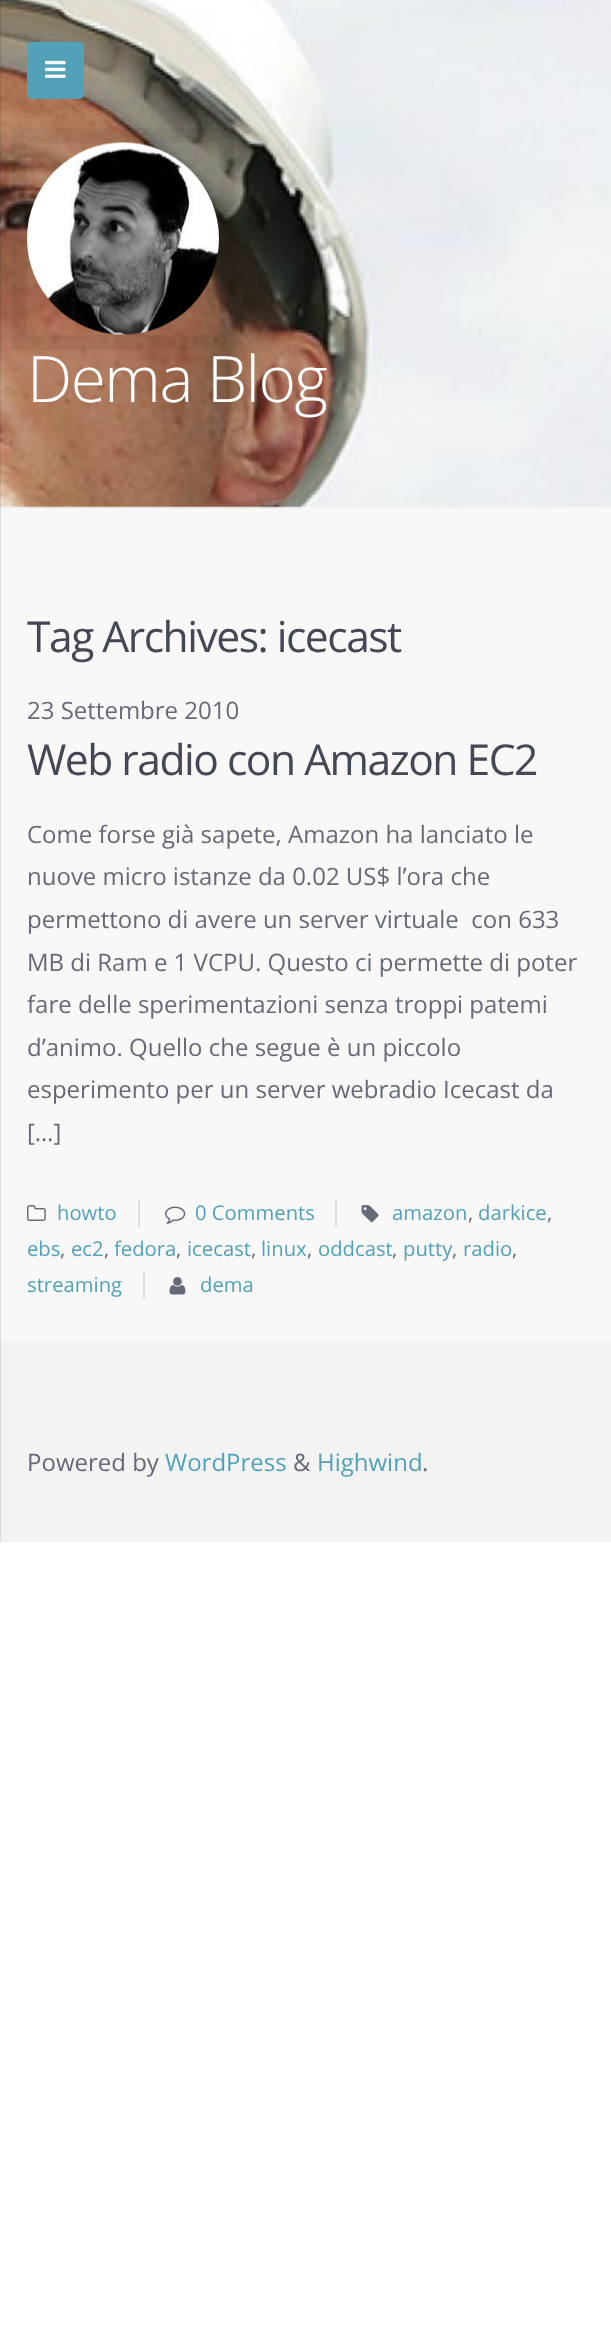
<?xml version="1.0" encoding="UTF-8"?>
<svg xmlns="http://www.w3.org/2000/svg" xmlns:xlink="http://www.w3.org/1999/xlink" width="611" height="2341">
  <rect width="100%" height="100%" fill="#ffffff" />
  <rect y="506" width="611" height="835" fill="#f8f8f9" />
  <image x="0" y="0" width="611" height="509" xlink:href="image1.png" />
  <rect y="1341" width="611" height="201" fill="#f3f3f4" />
  <rect width="1" height="1542" fill="#000000" fill-opacity="0.1" />
  <rect x="27" y="42" width="57" height="57" rx="5" fill="#53a1b8" />
  <image x="45" y="60" width="21" height="18" xlink:href="image2.png" />
  <rect x="19.5" y="135.5" width="207" height="207" fill="none" stroke="#000000" stroke-opacity="0.05" stroke-width="15" />
  <image x="27" y="142" width="192" height="193" xlink:href="image3.png" />
  <rect x="143" y="1272" width="2" height="27" fill="#dfdfe0" />
  <image x="361" y="1205" width="18" height="18" xlink:href="image4.png" />
  <rect x="138" y="1200" width="2" height="27" fill="#dfdfe0" />
  <image x="27" y="1205" width="19" height="16" xlink:href="image5.png" />
  <rect x="335" y="1200" width="2" height="27" fill="#dfdfe0" />
  <image x="165" y="1206" width="21" height="18" xlink:href="image6.png" />
  <image x="169" y="1277" width="17" height="18" xlink:href="image7.png" />
  <text x="27" y="402" style="font-family: Open Sans; font-size: 64px; font-weight: 300; letter-spacing: -1.5px; fill: #ffffff">Dema Blog</text>
  <text x="27" y="652" style="font-family: Open Sans; font-size: 42.6px; letter-spacing: -1.5px; fill: #444854">Tag Archives: icecast</text>
  <text x="27" y="719" style="font-family: Open Sans; font-size: 24px; fill: #666a76">23 Settembre 2010</text>
  <text x="27" y="775" style="font-family: Open Sans; font-size: 42.6px; letter-spacing: -1.5px; fill: #444854">Web radio con Amazon EC2</text>
  <text x="27" y="843" style="font-family: Open Sans; font-size: 24px; fill: #666a76">Come forse già sapete, Amazon ha lanciato le</text>
  <text x="27" y="885" style="font-family: Open Sans; font-size: 24px; fill: #666a76">nuove micro istanze da 0.02 US$ l’ora che</text>
  <text x="27" y="928" style="font-family: Open Sans; font-size: 24px; fill: #666a76" xml:space="preserve">permettono di avere un server virtuale  con 633</text>
  <text x="27" y="971" style="font-family: Open Sans; font-size: 24px; fill: #666a76">MB di Ram e 1 VCPU. Questo ci permette di poter</text>
  <text x="27" y="1013" style="font-family: Open Sans; font-size: 24px; fill: #666a76">fare delle sperimentazioni senza troppi patemi</text>
  <text x="27" y="1056" style="font-family: Open Sans; font-size: 24px; fill: #666a76">d’animo. Quello che segue è un piccolo</text>
  <text x="27" y="1098" style="font-family: Open Sans; font-size: 24px; fill: #666a76">esperimento per un server webradio Icecast da</text>
  <text x="27" y="1141" style="font-family: Open Sans; font-size: 24px; fill: #666a76">[…]</text>
  <text x="392" y="1220" style="font-family: Open Sans; font-size: 20.25px; fill: #53a1b8">amazon</text>
  <text x="468" y="1220" style="font-family: Open Sans; font-size: 20.25px; fill: #666a76">,</text>
  <text x="478" y="1220" style="font-family: Open Sans; font-size: 20.25px; fill: #53a1b8">darkice</text>
  <text x="547" y="1220" style="font-family: Open Sans; font-size: 20.25px; fill: #666a76">,</text>
  <text x="27" y="1256" style="font-family: Open Sans; font-size: 20.25px; fill: #53a1b8">ebs</text>
  <text x="60" y="1256" style="font-family: Open Sans; font-size: 20.25px; fill: #666a76">,</text>
  <text x="71" y="1256" style="font-family: Open Sans; font-size: 20.25px; fill: #53a1b8">ec2</text>
  <text x="104" y="1256" style="font-family: Open Sans; font-size: 20.25px; fill: #666a76">,</text>
  <text x="114" y="1256" style="font-family: Open Sans; font-size: 20.25px; fill: #53a1b8">fedora</text>
  <text x="176" y="1256" style="font-family: Open Sans; font-size: 20.25px; fill: #666a76">,</text>
  <text x="187" y="1256" style="font-family: Open Sans; font-size: 20.25px; fill: #53a1b8">icecast</text>
  <text x="251" y="1256" style="font-family: Open Sans; font-size: 20.25px; fill: #666a76">,</text>
  <text x="261" y="1256" style="font-family: Open Sans; font-size: 20.25px; fill: #53a1b8">linux</text>
  <text x="307" y="1256" style="font-family: Open Sans; font-size: 20.25px; fill: #666a76">,</text>
  <text x="318" y="1256" style="font-family: Open Sans; font-size: 20.25px; fill: #53a1b8">oddcast</text>
  <text x="392" y="1256" style="font-family: Open Sans; font-size: 20.25px; fill: #666a76">,</text>
  <text x="403" y="1256" style="font-family: Open Sans; font-size: 20.25px; fill: #53a1b8">putty</text>
  <text x="452" y="1256" style="font-family: Open Sans; font-size: 20.25px; fill: #666a76">,</text>
  <text x="463" y="1256" style="font-family: Open Sans; font-size: 20.25px; fill: #53a1b8">radio</text>
  <text x="512" y="1256" style="font-family: Open Sans; font-size: 20.25px; fill: #666a76">,</text>
  <text x="27" y="1292" style="font-family: Open Sans; font-size: 20.25px; fill: #53a1b8">streaming</text>
  <text x="57" y="1220" style="font-family: Open Sans; font-size: 20.25px; fill: #53a1b8">howto</text>
  <text x="195" y="1220" style="font-family: Open Sans; font-size: 20.25px; fill: #53a1b8">0 Comments</text>
  <text x="200" y="1292" style="font-family: Open Sans; font-size: 20.25px; fill: #53a1b8">dema</text>
  <text x="27" y="1471" style="font-family: Open Sans; font-size: 24px; fill: #666a76">Powered by</text>
  <text x="165" y="1471" style="font-family: Open Sans; font-size: 24px; fill: #53a1b8">WordPress</text>
  <text x="293" y="1471" style="font-family: Open Sans; font-size: 24px; fill: #666a76">&amp;</text>
  <text x="317" y="1471" style="font-family: Open Sans; font-size: 24px; fill: #53a1b8">Highwind</text>
  <text x="422" y="1471" style="font-family: Open Sans; font-size: 24px; fill: #666a76">.</text>
</svg>
